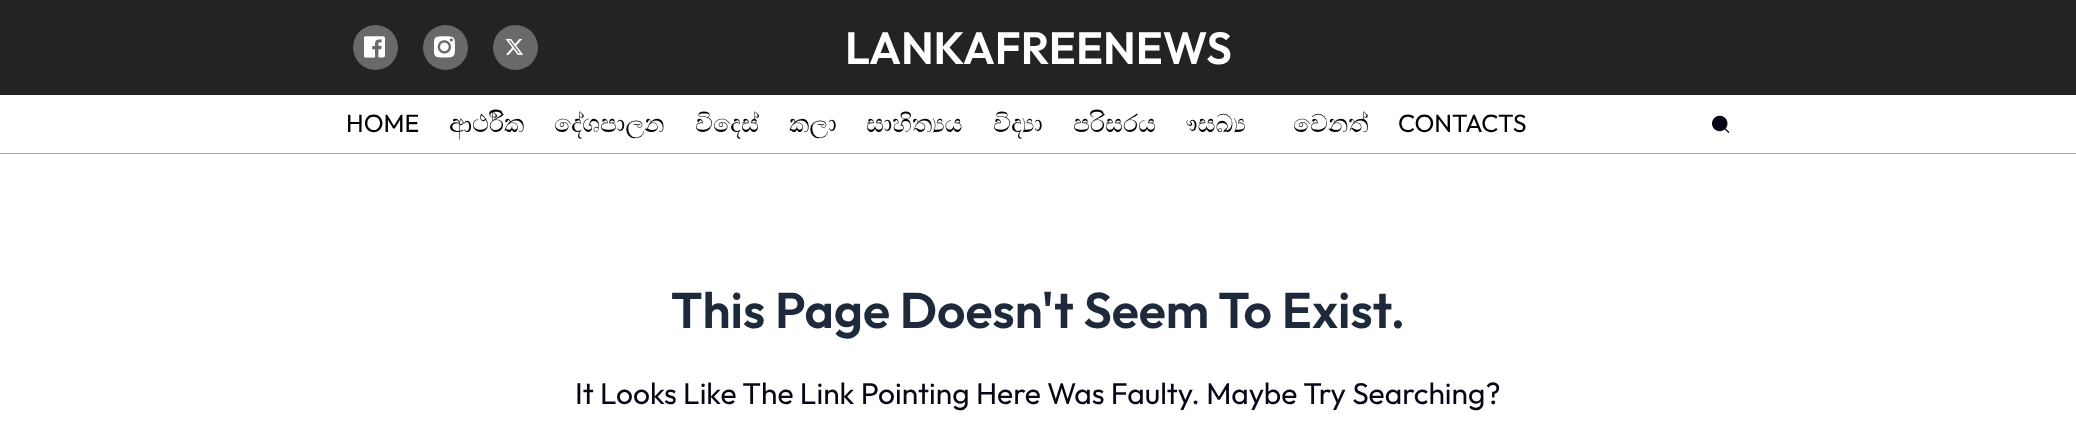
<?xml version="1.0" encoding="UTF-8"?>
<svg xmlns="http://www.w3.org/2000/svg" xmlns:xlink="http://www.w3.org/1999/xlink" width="2076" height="444">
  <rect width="100%" height="100%" fill="#ffffff" />
  <rect width="2076" height="95" fill="#232323" />
  <circle cx="375.5" cy="47.5" r="22.5" fill="#696969" />
  <image x="364" y="36" width="21" height="22" xlink:href="image1.png" />
  <circle cx="445.5" cy="47.5" r="22.5" fill="#696969" />
  <image x="434" y="36" width="21" height="22" xlink:href="image2.png" />
  <circle cx="515.5" cy="47.5" r="22.5" fill="#696969" />
  <image x="505" y="38" width="19" height="17" xlink:href="image3.png" />
  <rect y="153" width="2076" height="1" fill="#a7a7c3" />
  <image x="1712" y="115" width="18" height="18" xlink:href="image4.png" />
  <text x="845" y="64" style="font-family: Outfit; font-size: 45px; font-weight: 600; fill: #ffffff">LANKAFREENEWS</text>
  <text x="346" y="132" style="font-family: Outfit; font-size: 25px; fill: #000000">HOME</text>
  <text x="449" y="132" style="font-family: FreeSerif; font-size: 25px; fill: #000000">ආර්ථික</text>
  <text x="554" y="132" style="font-family: FreeSerif; font-size: 25px; fill: #000000">දේශපාලන</text>
  <text x="695" y="132" style="font-family: FreeSerif; font-size: 25px; fill: #000000">විදෙස්</text>
  <text x="789" y="132" style="font-family: FreeSerif; font-size: 25px; fill: #000000">කලා</text>
  <text x="866" y="132" style="font-family: FreeSerif; font-size: 25px; fill: #000000">සාහිත්‍යය</text>
  <text x="993" y="132" style="font-family: FreeSerif; font-size: 25px; fill: #000000">විද්‍යා</text>
  <text x="1073" y="132" style="font-family: FreeSerif; font-size: 25px; fill: #000000">පරිසරය</text>
  <text x="1186" y="132" style="font-family: FreeSerif; font-size: 25px; fill: #000000">සෞඛ්‍ය</text>
  <text x="1293" y="132" style="font-family: FreeSerif; font-size: 25px; fill: #000000">වෙනත්</text>
  <text x="1398" y="132" style="font-family: Outfit; font-size: 25px; fill: #000000">CONTACTS</text>
  <text x="671" y="328" style="font-family: Outfit; font-size: 50px; font-weight: 600; fill: #1e293b">This Page Doesn't Seem To Exist.</text>
  <text x="575" y="404" style="font-family: Outfit; font-size: 30px; fill: #060616">It Looks Like The Link Pointing Here Was Faulty. Maybe Try Searching?</text>
</svg>
